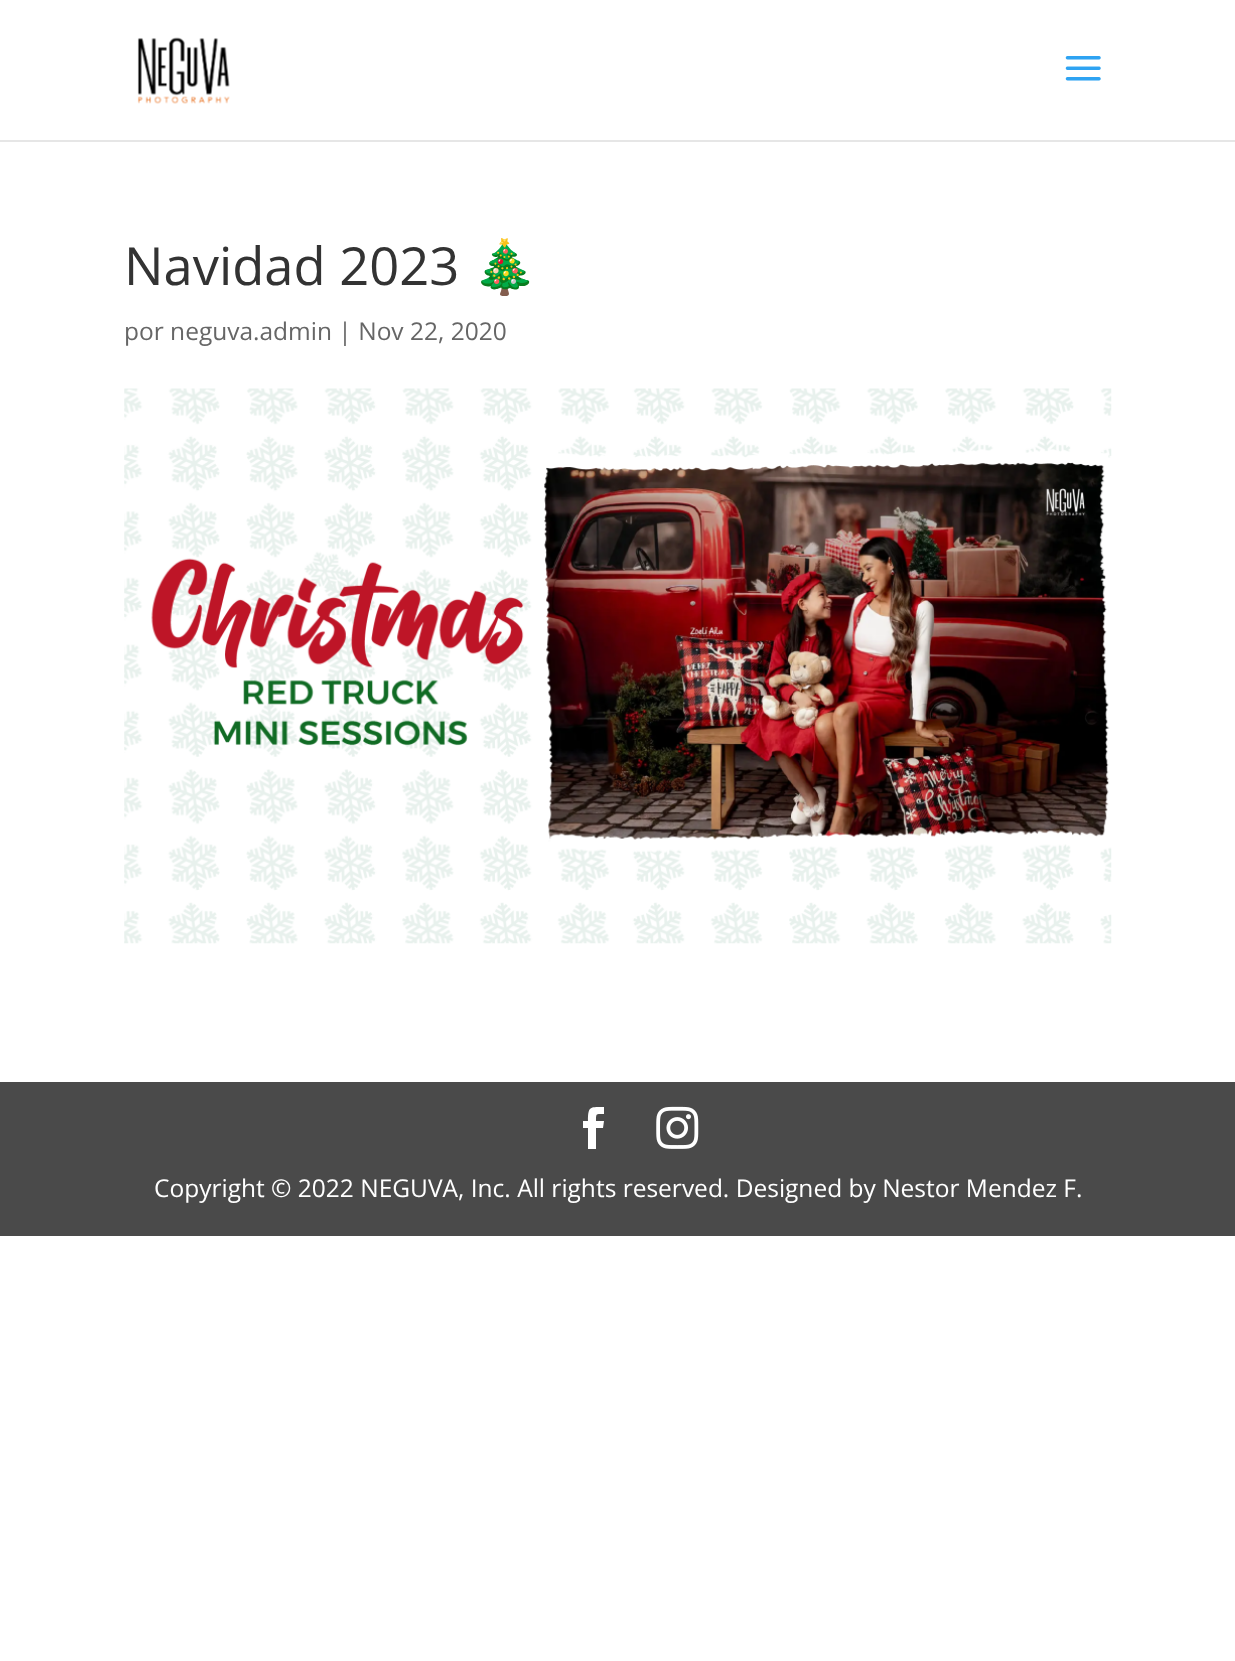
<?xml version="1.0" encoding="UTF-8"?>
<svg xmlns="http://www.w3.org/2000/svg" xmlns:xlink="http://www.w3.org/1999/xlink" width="1235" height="1661">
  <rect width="100%" height="100%" fill="#ffffff" />
  <path d="M 0 140 v 2 h 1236 v -140 v 138 z" fill="#e6e6e6" />
  <image x="137" y="37" width="93" height="67" xlink:href="image1.png" />
  <image x="1065" y="56" width="36" height="25" xlink:href="image2.png" />
  <image x="124" y="388" width="988" height="556" xlink:href="image3.png" />
  <rect y="1082" width="1235" height="154" fill="#4a4a4a" />
  <path d="M 588 1149 h 8 v -21 h 7 l 1 -7 h -8 c 0 -8 0 -7 8 -7 v -7 c -14 0 -16 -1 -16 14 h -5 v 7 h 5 z" fill="#ffffff" />
  <image x="656" y="1106" width="43" height="43" xlink:href="image4.png" />
  <text x="124" y="285" style="font-family: Open Sans; font-size: 52.5px; fill: #333333">Navidad 2023</text>
  <text x="472" y="285" style="font-family: Noto Color Emoji; font-size: 52.5px; fill: #333333">🎄</text>
  <text x="124" y="340" style="font-family: Open Sans; font-size: 24.5px; fill: #666666">por neguva.admin | Nov 22, 2020</text>
  <text x="154" y="1197" style="font-family: Open Sans; font-size: 24.5px; fill: #ffffff">Copyright © 2022 NEGUVA, Inc. All rights reserved. Designed by Nestor Mendez F.</text>
</svg>
